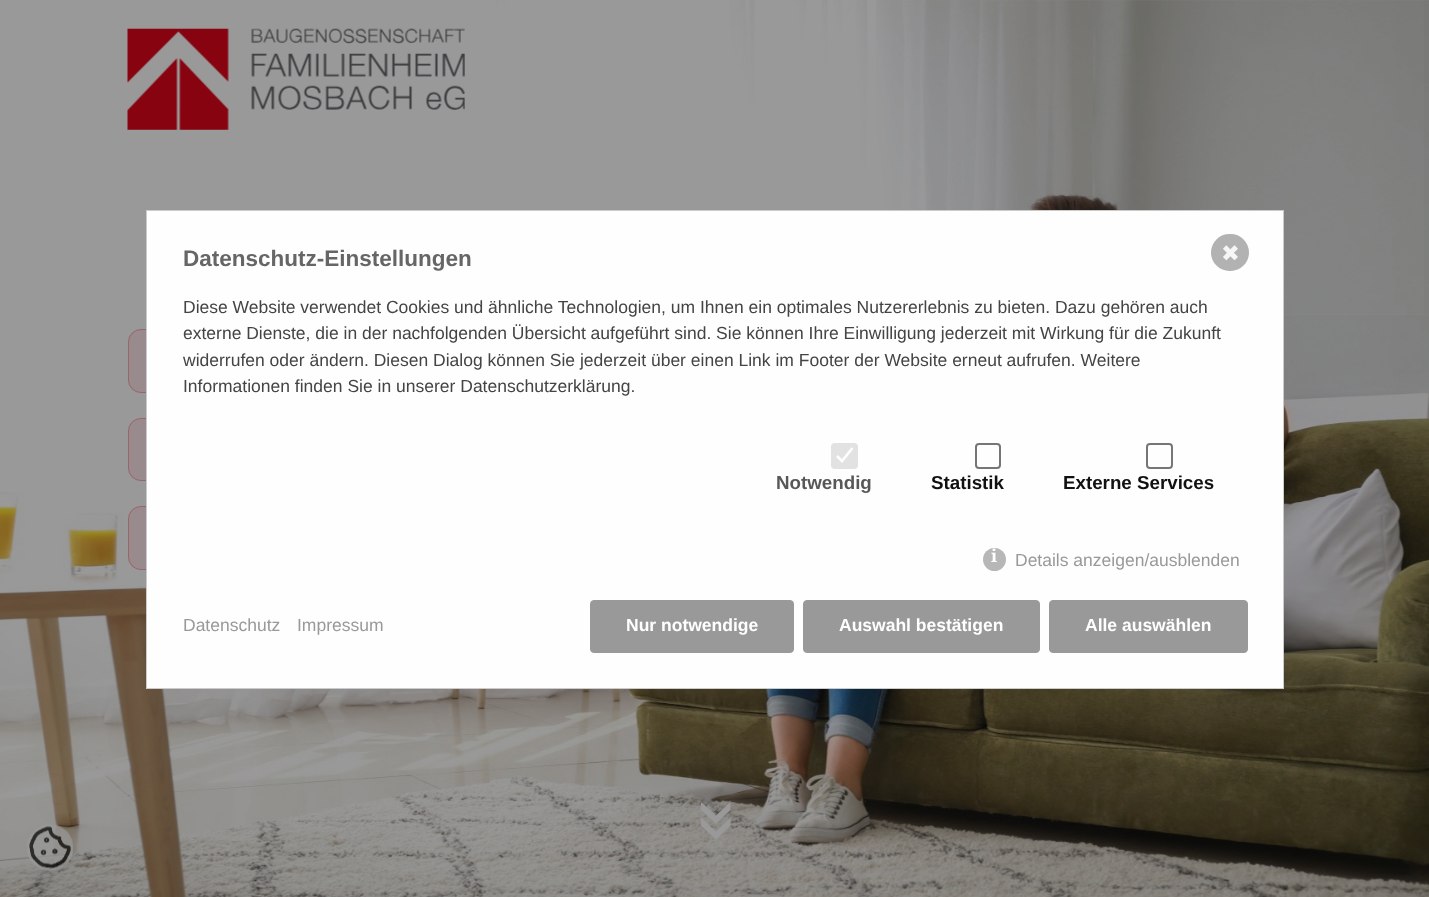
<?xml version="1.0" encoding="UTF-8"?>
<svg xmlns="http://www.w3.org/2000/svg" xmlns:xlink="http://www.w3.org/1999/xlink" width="1429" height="897">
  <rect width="100%" height="100%" fill="#ffffff" />
  <image x="0" y="0" width="1429" height="897" xlink:href="image1.png" />
  <rect x="128" y="329" width="193" height="64" rx="13" fill="#990013" fill-opacity="0.09" />
  <rect x="128.5" y="329.5" width="192" height="63" rx="12.5" fill="none" stroke="#990013" stroke-opacity="0.28" />
  <rect x="128" y="418" width="297" height="63" rx="13" fill="#990013" fill-opacity="0.09" />
  <rect x="128.5" y="418.5" width="296" height="62" rx="12.5" fill="none" stroke="#990013" stroke-opacity="0.28" />
  <rect x="128" y="506" width="261" height="64" rx="13" fill="#990013" fill-opacity="0.09" />
  <rect x="128.5" y="506.5" width="260" height="63" rx="12.5" fill="none" stroke="#990013" stroke-opacity="0.28" />
  <path d="M 730.5 810 v -8 l -14.5 13.5 l -15 -13.5 v 8 l 15 13.5 z m 0 15.5 v -8 l -14.5 14 l -15 -14 v 8 l 15 14 z" fill="#999999" />
  <rect x="543" width="881" height="315" fill="#999999" fill-opacity="0.07" />
  <rect x="0.5" y="0.5" width="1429" height="314" fill="none" stroke="#999999" stroke-opacity="0.09" />
  <image x="127" y="28" width="338" height="102" xlink:href="image2.png" />
  <rect x="146.5" y="210.5" width="1137" height="478" fill="#fefefe" stroke="#cbcbcb" />
  <rect x="1212.5" y="235.5" width="35" height="34" rx="17" fill="#b2b2b2" stroke="#b2b2b2" stroke-width="3" />
  <rect x="831" y="443" width="27" height="26" rx="4" fill="#e2e2e2" />
  <path d="M 837 456 l 5 5 l 10.5 -13" fill="none" stroke="#ffffff" stroke-width="2.6" />
  <rect x="976" y="444" width="24" height="24" rx="3" fill="none" stroke="#767676" stroke-width="2" />
  <rect x="1147" y="444" width="25" height="24" rx="3" fill="none" stroke="#767676" stroke-width="2" />
  <circle cx="994.5" cy="559.5" r="11.5" fill="#b7b7b7" />
  <rect x="590.5" y="600.5" width="203" height="52" rx="3.5" fill="#999999" stroke="#999999" />
  <rect x="803.5" y="600.5" width="236" height="52" rx="3.5" fill="#999999" stroke="#999999" />
  <rect x="1049.5" y="600.5" width="198" height="52" rx="3.5" fill="#999999" stroke="#999999" />
  <image x="27" y="824" width="47" height="48" xlink:href="image3.png" />
  <text x="1221" y="261" style="font-family: DejaVu Sans; font-size: 22.5px; fill: #f6f6f6">✖</text>
  <text x="183" y="266" style="font-family: Liberation Sans; font-size: 22.5px; font-weight: bold; fill: #666666">Datenschutz-Einstellungen</text>
  <text x="183" y="313" style="font-family: Liberation Sans; font-size: 17.5px; fill: #444444">Diese Website verwendet Cookies und ähnliche Technologien, um Ihnen ein optimales Nutzererlebnis zu bieten. Dazu gehören auch</text>
  <text x="183" y="339" style="font-family: Liberation Sans; font-size: 17.5px; fill: #444444">externe Dienste, die in der nachfolgenden Übersicht aufgeführt sind. Sie können Ihre Einwilligung jederzeit mit Wirkung für die Zukunft</text>
  <text x="183" y="366" style="font-family: Liberation Sans; font-size: 17.5px; fill: #444444">widerrufen oder ändern. Diesen Dialog können Sie jederzeit über einen Link im Footer der Website erneut aufrufen. Weitere</text>
  <text x="183" y="392" style="font-family: Liberation Sans; font-size: 17.5px; fill: #444444">Informationen finden Sie in unserer Datenschutzerklärung.</text>
  <text x="776" y="489" style="font-family: Liberation Sans; font-size: 18.75px; font-weight: bold; fill: #585858">Notwendig</text>
  <text x="931" y="489" style="font-family: Liberation Sans; font-size: 18.75px; font-weight: bold; fill: #111111">Statistik</text>
  <text x="1063" y="489" style="font-family: Liberation Sans; font-size: 18.75px; font-weight: bold; fill: #111111">Externe Services</text>
  <text x="991" y="562" style="font-family: Noto Serif; font-size: 17.5px; font-weight: bold; fill: #ffffff">i</text>
  <text x="1015" y="566" style="font-family: Liberation Sans; font-size: 17.5px; fill: #999999">Details anzeigen/ausblenden</text>
  <text x="183" y="631" style="font-family: Liberation Sans; font-size: 17.5px; fill: #999999">Datenschutz</text>
  <text x="297" y="631" style="font-family: Liberation Sans; font-size: 17.5px; fill: #999999">Impressum</text>
  <text x="626" y="631" style="font-family: Liberation Sans; font-size: 17.5px; font-weight: bold; fill: #ffffff">Nur notwendige</text>
  <text x="839" y="631" style="font-family: Liberation Sans; font-size: 17.5px; font-weight: bold; fill: #ffffff">Auswahl bestätigen</text>
  <text x="1085" y="631" style="font-family: Liberation Sans; font-size: 17.5px; font-weight: bold; fill: #ffffff">Alle auswählen</text>
</svg>
